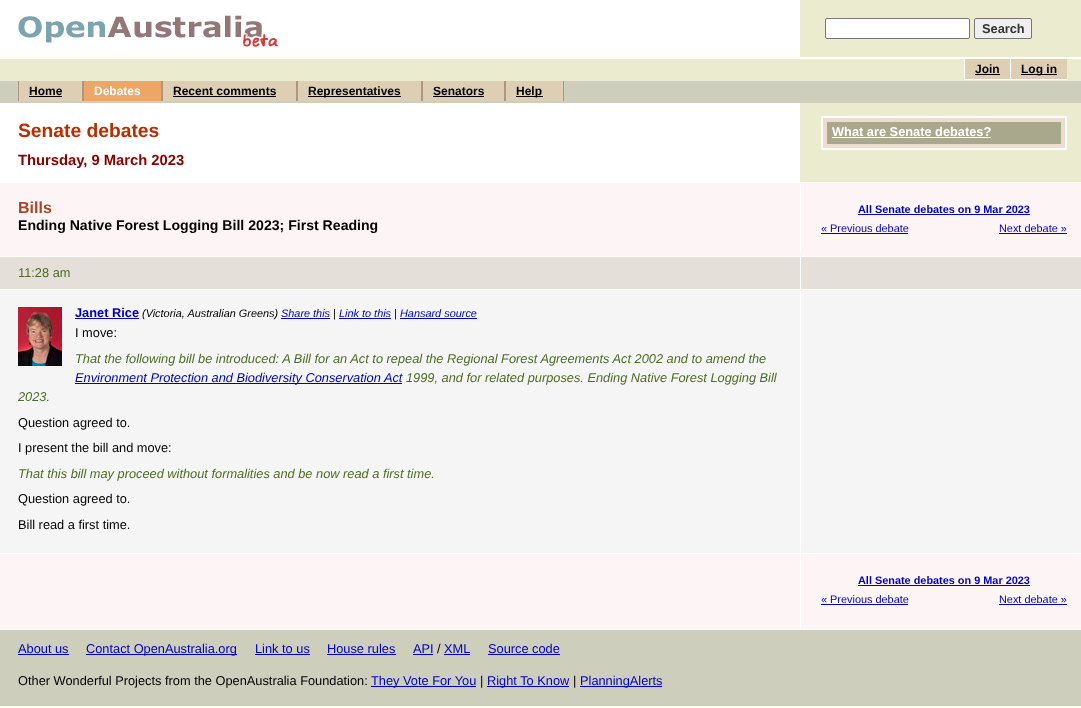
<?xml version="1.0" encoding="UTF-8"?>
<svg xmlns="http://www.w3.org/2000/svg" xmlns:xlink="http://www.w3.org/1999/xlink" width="1081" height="708">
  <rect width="100%" height="100%" fill="#ffffff" />
  <image x="18" y="15" width="260" height="32" xlink:href="image1.png" />
  <rect x="800" width="281" height="57" fill="#ebeccf" />
  <rect x="825.5" y="18.5" width="144" height="20" rx="1.5" fill="#ffffff" stroke="#767676" />
  <rect x="974.5" y="18.5" width="57" height="20" rx="1.5" fill="#efefef" stroke="#767676" />
  <rect y="59" width="1081" height="22" fill="#ebeccf" />
  <rect x="965" y="59" width="45" height="20" fill="#deceb3" />
  <rect x="964" y="79" width="103" height="1" fill="#ffffff" />
  <rect x="964" y="59" width="1" height="21" fill="#ffffff" />
  <rect x="975" y="74" width="25" height="1" fill="#000000" />
  <rect x="1011" y="59" width="56" height="20" fill="#deceb3" />
  <rect x="1010" y="59" width="1" height="21" fill="#ffffff" />
  <rect x="1021" y="74" width="36" height="1" fill="#000000" />
  <rect y="81" width="1081" height="22" fill="#cdcebc" />
  <rect x="19" y="81" width="63" height="20" fill="#deceb3" />
  <rect x="82" y="81" width="2" height="20" fill="#ae967f" />
  <rect x="18" y="81" width="1" height="20" fill="#ae967f" />
  <rect x="29" y="96" width="33" height="1" fill="#000000" />
  <rect x="84" y="81" width="77" height="20" fill="#eba668" />
  <rect x="161" y="81" width="2" height="20" fill="#ae967f" />
  <rect x="163" y="81" width="133" height="20" fill="#deceb3" />
  <rect x="296" y="81" width="2" height="20" fill="#ae967f" />
  <rect x="173" y="96" width="103" height="1" fill="#000000" />
  <rect x="298" y="81" width="123" height="20" fill="#deceb3" />
  <rect x="421" y="81" width="2" height="20" fill="#ae967f" />
  <rect x="308" y="96" width="93" height="1" fill="#000000" />
  <rect x="423" y="81" width="81" height="20" fill="#deceb3" />
  <rect x="504" y="81" width="2" height="20" fill="#ae967f" />
  <rect x="433" y="96" width="51" height="1" fill="#000000" />
  <rect x="506" y="81" width="57" height="20" fill="#deceb3" />
  <rect x="563" y="81" width="1" height="20" fill="#ae967f" />
  <rect x="516" y="96" width="27" height="1" fill="#000000" />
  <rect x="800" y="103" width="281" height="79" fill="#ebeccf" />
  <rect x="822" y="117" width="244" height="32" fill="#ecddcf" stroke="#ffffff" stroke-width="2" />
  <rect x="827" y="122" width="234" height="22" fill="#a8a98c" />
  <rect x="832" y="137" width="159" height="1" fill="#ffffff" />
  <rect y="183" width="1081" height="73" fill="#fdf5f5" />
  <rect x="800" y="183" width="1" height="70" fill="#ffffff" />
  <rect x="858" y="214" width="172" height="1" fill="#0000bb" />
  <rect x="821" y="233" width="87" height="1" fill="#0000bb" />
  <rect x="999" y="233" width="68" height="1" fill="#0000bb" />
  <rect y="257" width="1081" height="32" fill="#e5dfd9" />
  <rect x="800" y="257" width="1" height="32" fill="#ffffff" />
  <rect y="290" width="1081" height="263" fill="#f5f5f5" />
  <rect x="800" y="290" width="1" height="263" fill="#ffffff" />
  <image x="18" y="307" width="44" height="59" xlink:href="image2.png" />
  <rect x="75" y="318" width="64" height="1" fill="#0000bb" />
  <rect x="281" y="318" width="49" height="1" fill="#0000bb" />
  <rect x="339" y="318" width="52" height="1" fill="#0000bb" />
  <rect x="400" y="318" width="77" height="1" fill="#0000bb" />
  <rect x="75" y="383" width="327" height="1" fill="#0000bb" />
  <rect y="554" width="1081" height="75" fill="#fdf5f5" />
  <rect x="800" y="554" width="1" height="75" fill="#ffffff" />
  <rect x="858" y="585" width="172" height="1" fill="#0000bb" />
  <rect x="821" y="604" width="87" height="1" fill="#0000bb" />
  <rect x="999" y="604" width="68" height="1" fill="#0000bb" />
  <rect y="630" width="1081" height="76" fill="#cdcebc" />
  <rect x="18" y="654" width="51" height="1" fill="#0000bb" />
  <rect x="86" y="654" width="151" height="1" fill="#0000bb" />
  <rect x="255" y="654" width="55" height="1" fill="#0000bb" />
  <rect x="327" y="654" width="69" height="1" fill="#0000bb" />
  <rect x="413" y="654" width="20" height="1" fill="#0000bb" />
  <rect x="444" y="654" width="26" height="1" fill="#0000bb" />
  <rect x="488" y="654" width="72" height="1" fill="#0000bb" />
  <rect x="371" y="686" width="105" height="1" fill="#0000bb" />
  <rect x="487" y="686" width="82" height="1" fill="#0000bb" />
  <rect x="580" y="686" width="82" height="1" fill="#0000bb" />
  <text x="982" y="33" style="font-family: Liberation Sans; font-size: 12.8px; font-weight: bold; fill: #333333">Search</text>
  <text x="975" y="73" style="font-family: Liberation Sans; font-size: 12px; font-weight: bold; fill: #000000">Join</text>
  <text x="1021" y="73" style="font-family: Liberation Sans; font-size: 12px; font-weight: bold; fill: #000000">Log in</text>
  <text x="29" y="95" style="font-family: Liberation Sans; font-size: 12px; font-weight: bold; fill: #000000">Home</text>
  <text x="94" y="95" style="font-family: Liberation Sans; font-size: 12px; font-weight: bold; fill: #ffffff">Debates</text>
  <text x="173" y="95" style="font-family: Liberation Sans; font-size: 12px; font-weight: bold; fill: #000000">Recent comments</text>
  <text x="308" y="95" style="font-family: Liberation Sans; font-size: 12px; font-weight: bold; fill: #000000">Representatives</text>
  <text x="433" y="95" style="font-family: Liberation Sans; font-size: 12px; font-weight: bold; fill: #000000">Senators</text>
  <text x="516" y="95" style="font-family: Liberation Sans; font-size: 12px; font-weight: bold; fill: #000000">Help</text>
  <text x="18" y="137" style="font-family: Liberation Sans; font-size: 19.25px; font-weight: bold; fill: #b82e00">Senate debates</text>
  <text x="18" y="165" style="font-family: Liberation Sans; font-size: 14.75px; font-weight: bold; fill: #880101">Thursday, 9 March 2023</text>
  <text x="832" y="136" style="font-family: Liberation Sans; font-size: 12.8px; font-weight: bold; fill: #ffffff">What are Senate debates?</text>
  <text x="18" y="213" style="font-family: Liberation Sans; font-size: 16px; font-weight: bold; fill: #ab4329">Bills</text>
  <text x="18" y="230" style="font-family: Liberation Sans; font-size: 14.1px; font-weight: bold; fill: #000000">Ending Native Forest Logging Bill 2023; First Reading</text>
  <text x="858" y="213" style="font-family: Liberation Sans; font-size: 10.9px; font-weight: bold; fill: #0000bb">All Senate debates on 9 Mar 2023</text>
  <text x="821" y="232" style="font-family: Liberation Sans; font-size: 10.9px; fill: #0000bb">« Previous debate</text>
  <text x="999" y="232" style="font-family: Liberation Sans; font-size: 10.9px; fill: #0000bb">Next debate »</text>
  <text x="18" y="277" style="font-family: Liberation Sans; font-size: 12.8px; fill: #4d6c25">11:28 am</text>
  <text x="75" y="317" style="font-family: Liberation Sans; font-size: 12.8px; font-weight: bold; fill: #0000bb">Janet Rice</text>
  <text x="142" y="317" style="font-family: Liberation Sans; font-size: 10.9px; font-style: italic; fill: #000000">(Victoria, Australian Greens)</text>
  <text x="281" y="317" style="font-family: Liberation Sans; font-size: 10.9px; font-style: italic; fill: #0000bb">Share this</text>
  <text x="333" y="317" style="font-family: Liberation Sans; font-size: 10.9px; font-style: italic; fill: #000000">|</text>
  <text x="339" y="317" style="font-family: Liberation Sans; font-size: 10.9px; font-style: italic; fill: #0000bb">Link to this</text>
  <text x="394" y="317" style="font-family: Liberation Sans; font-size: 10.9px; font-style: italic; fill: #000000">|</text>
  <text x="400" y="317" style="font-family: Liberation Sans; font-size: 10.9px; font-style: italic; fill: #0000bb">Hansard source</text>
  <text x="75" y="337" style="font-family: Liberation Sans; font-size: 12.8px; fill: #000000">I move:</text>
  <text x="75" y="363" style="font-family: Liberation Sans; font-size: 12.8px; font-style: italic; fill: #4d6c25">That the following bill be introduced: A Bill for an Act to repeal the Regional Forest Agreements Act 2002 and to amend the</text>
  <text x="75" y="382" style="font-family: Liberation Sans; font-size: 12.8px; font-style: italic; fill: #0000bb">Environment Protection and Biodiversity Conservation Act</text>
  <text x="406" y="382" style="font-family: Liberation Sans; font-size: 12.8px; font-style: italic; fill: #4d6c25">1999, and for related purposes. Ending Native Forest Logging Bill</text>
  <text x="18" y="401" style="font-family: Liberation Sans; font-size: 12.8px; font-style: italic; fill: #4d6c25">2023.</text>
  <text x="18" y="427" style="font-family: Liberation Sans; font-size: 12.8px; fill: #000000">Question agreed to.</text>
  <text x="18" y="452" style="font-family: Liberation Sans; font-size: 12.8px; fill: #000000">I present the bill and move:</text>
  <text x="18" y="478" style="font-family: Liberation Sans; font-size: 12.8px; font-style: italic; fill: #4d6c25">That this bill may proceed without formalities and be now read a first time.</text>
  <text x="18" y="503" style="font-family: Liberation Sans; font-size: 12.8px; fill: #000000">Question agreed to.</text>
  <text x="18" y="529" style="font-family: Liberation Sans; font-size: 12.8px; fill: #000000">Bill read a first time.</text>
  <text x="858" y="584" style="font-family: Liberation Sans; font-size: 10.9px; font-weight: bold; fill: #0000bb">All Senate debates on 9 Mar 2023</text>
  <text x="821" y="603" style="font-family: Liberation Sans; font-size: 10.9px; fill: #0000bb">« Previous debate</text>
  <text x="999" y="603" style="font-family: Liberation Sans; font-size: 10.9px; fill: #0000bb">Next debate »</text>
  <text x="18" y="653" style="font-family: Liberation Sans; font-size: 12.8px; fill: #0000bb">About us</text>
  <text x="86" y="653" style="font-family: Liberation Sans; font-size: 12.8px; fill: #0000bb">Contact OpenAustralia.org</text>
  <text x="255" y="653" style="font-family: Liberation Sans; font-size: 12.8px; fill: #0000bb">Link to us</text>
  <text x="327" y="653" style="font-family: Liberation Sans; font-size: 12.8px; fill: #0000bb">House rules</text>
  <text x="413" y="653" style="font-family: Liberation Sans; font-size: 12.8px; fill: #0000bb">API</text>
  <text x="437" y="653" style="font-family: Liberation Sans; font-size: 12.8px; fill: #000000">/</text>
  <text x="444" y="653" style="font-family: Liberation Sans; font-size: 12.8px; fill: #0000bb">XML</text>
  <text x="488" y="653" style="font-family: Liberation Sans; font-size: 12.8px; fill: #0000bb">Source code</text>
  <text x="18" y="685" style="font-family: Liberation Sans; font-size: 12.8px; fill: #000000">Other Wonderful Projects from the OpenAustralia Foundation:</text>
  <text x="371" y="685" style="font-family: Liberation Sans; font-size: 12.8px; fill: #0000bb">They Vote For You</text>
  <text x="480" y="685" style="font-family: Liberation Sans; font-size: 12.8px; fill: #000000">|</text>
  <text x="487" y="685" style="font-family: Liberation Sans; font-size: 12.8px; fill: #0000bb">Right To Know</text>
  <text x="573" y="685" style="font-family: Liberation Sans; font-size: 12.8px; fill: #000000">|</text>
  <text x="580" y="685" style="font-family: Liberation Sans; font-size: 12.8px; fill: #0000bb">PlanningAlerts</text>
</svg>
